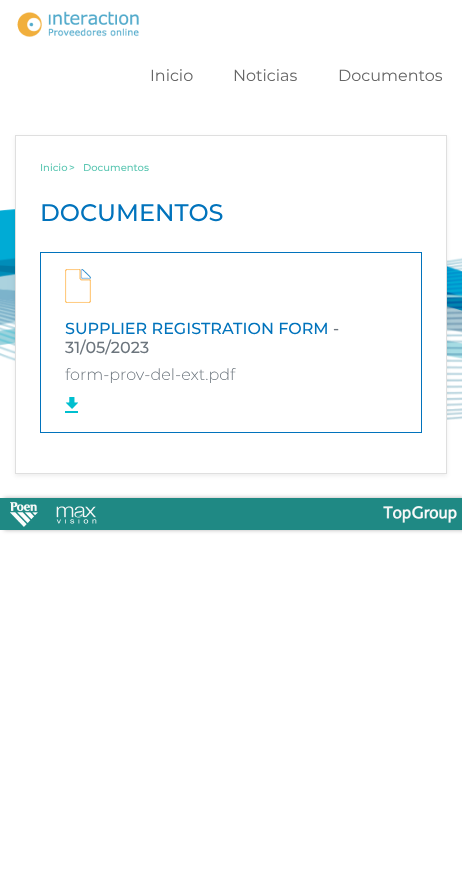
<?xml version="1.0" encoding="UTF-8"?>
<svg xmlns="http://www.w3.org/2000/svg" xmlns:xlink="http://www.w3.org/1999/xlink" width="462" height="875">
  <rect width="100%" height="100%" fill="#ffffff" />
  <image x="17" y="11" width="122" height="26" xlink:href="image1.png" />
  <image x="0" y="209" width="462" height="211" xlink:href="image2.png" />
  <rect x="15" y="137" width="432" height="339" fill="#000000" fill-opacity="0.07" filter="blur(2px)" />
  <rect x="15.5" y="135.5" width="431" height="338" fill="#ffffff" stroke="#dfdfdf" />
  <rect x="40.5" y="252.5" width="381" height="180" fill="none" stroke="#0173bc" />
  <image x="65" y="269" width="26" height="34" xlink:href="image3.png" />
  <image x="65" y="397" width="13" height="16" xlink:href="image4.png" />
  <rect x="4" y="498" width="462" height="32" fill="#000000" fill-opacity="0.3" filter="blur(2px)" />
  <rect y="498" width="462" height="32" fill="#1f8984" />
  <image x="10" y="502" width="28" height="25" xlink:href="image5.png" />
  <image x="56" y="506" width="41" height="18" xlink:href="image6.png" />
  <image x="383" y="506" width="74" height="17" xlink:href="image7.png" />
  <text x="150" y="81" style="font-family: Montserrat; font-size: 16px; fill: #666666">Inicio</text>
  <text x="233" y="81" style="font-family: Montserrat; font-size: 16px; fill: #666666">Noticias</text>
  <text x="338" y="81" style="font-family: Montserrat; font-size: 16px; fill: #666666">Documentos</text>
  <text x="40" y="171" style="font-family: Montserrat; font-size: 10px; font-weight: 500; fill: #5dc7b3">Inicio</text>
  <text x="69" y="171" style="font-family: Montserrat; font-size: 10px; font-weight: 500; fill: #5dc7b3">&gt;</text>
  <text x="83" y="171" style="font-family: Montserrat; font-size: 10px; font-weight: 500; fill: #5dc7b3">Documentos</text>
  <text x="40" y="221" style="font-family: Montserrat; font-size: 24px; font-weight: 500; fill: #0173bc">DOCUMENTOS</text>
  <text x="65" y="334" style="font-family: Montserrat; font-size: 16px; font-weight: 500; fill: #0173bc">SUPPLIER REGISTRATION FORM</text>
  <text x="333" y="334" style="font-family: Montserrat; font-size: 16px; font-weight: 500; fill: #6c757d">-</text>
  <text x="65" y="353" style="font-family: Montserrat; font-size: 16px; font-weight: 500; fill: #6c757d">31/05/2023</text>
  <text x="65" y="380" style="font-family: Montserrat; font-size: 16px; font-weight: 300; fill: #6c757d">form-prov-del-ext.pdf</text>
</svg>
